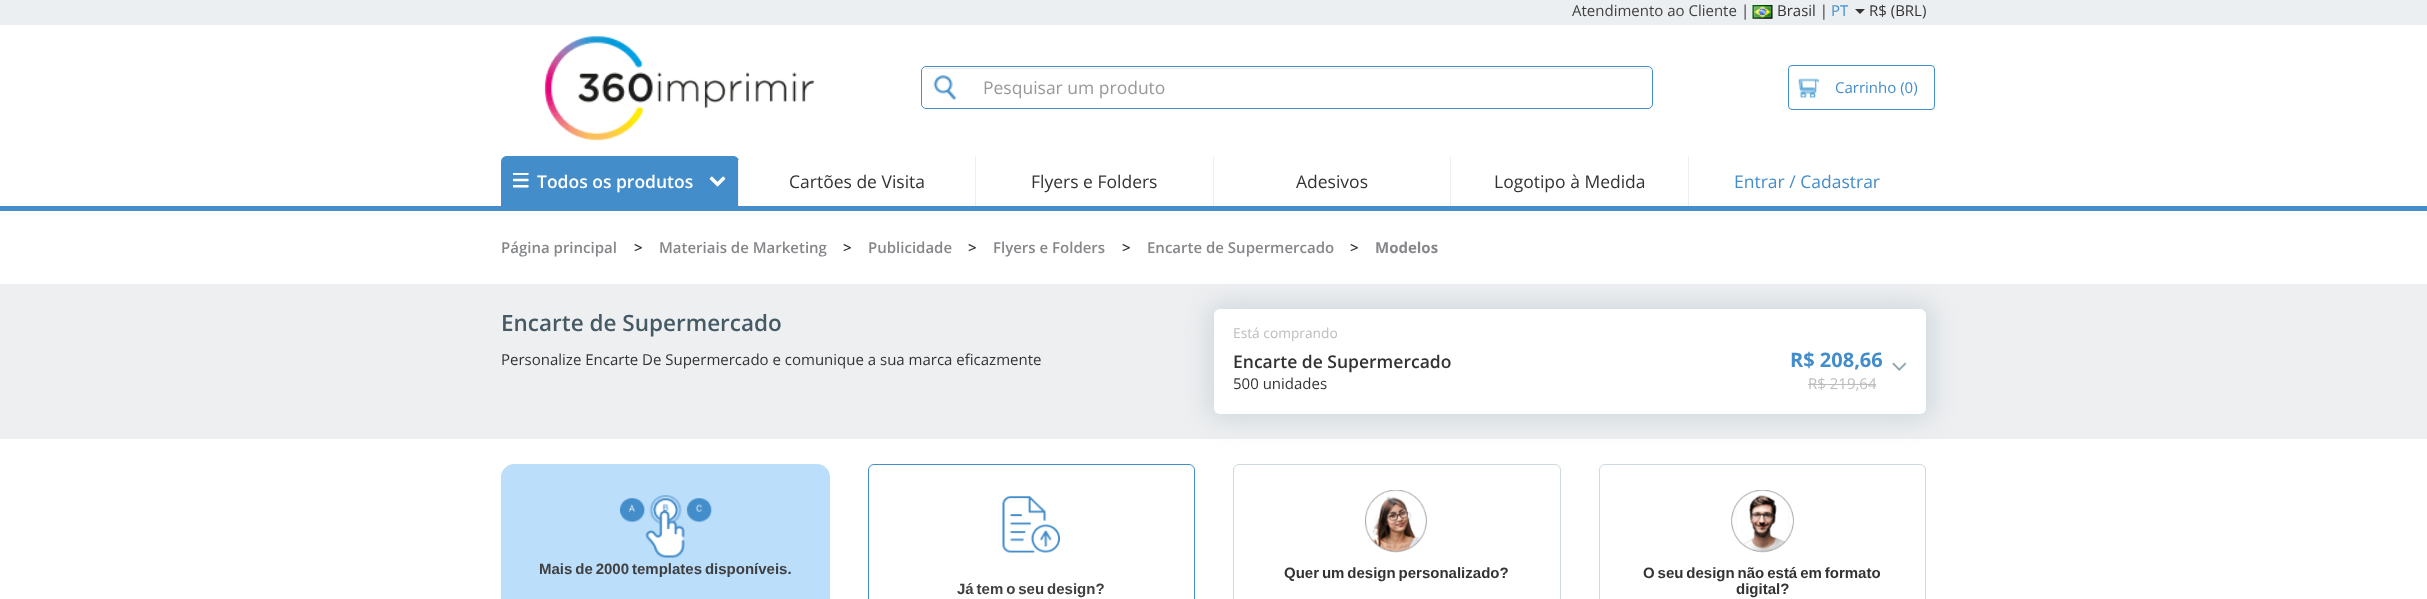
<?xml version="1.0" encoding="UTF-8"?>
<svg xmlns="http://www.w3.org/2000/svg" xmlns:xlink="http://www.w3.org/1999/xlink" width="2427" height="599">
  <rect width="100%" height="100%" fill="#ffffff" />
  <rect width="2427" height="25" fill="#eceff1" />
  <image x="1752" y="5" width="21" height="14" xlink:href="image1.png" />
  <path d="M 1855 9 h 10 l -5 5 z" fill="#333333" />
  <image x="544" y="36" width="270" height="105" xlink:href="image2.png" />
  <path d="M 926 69 h 722 l 2 1 c 0 -1 -2 -2 -3 -2 h -720 c -1 0 -2 1 -3 1 z" fill="#ececec" />
  <rect x="921.5" y="66.5" width="731" height="42" rx="4.5" fill="none" stroke="#448dcb" />
  <image x="933" y="75" width="24" height="25" xlink:href="image3.png" />
  <rect x="1788.5" y="65.5" width="146" height="44" rx="3.5" fill="none" stroke="#428dcc" />
  <image x="1798" y="78" width="21" height="20" xlink:href="image4.png" />
  <path d="M 507 156 h 226 c 3.5 0 6 2.5 6 6 v 44 h -238 v -44 c 0 -3.5 2.5 -6 6 -6 z" fill="#448dcb" />
  <rect x="738" y="160" width="1" height="46" fill="#eeeeed" />
  <image x="513" y="173" width="16" height="15" xlink:href="image5.png" />
  <image x="709" y="176" width="17" height="11" xlink:href="image6.png" />
  <rect x="975" y="156" width="1" height="50" fill="#eeeeed" />
  <rect x="1213" y="156" width="1" height="50" fill="#eeeeed" />
  <rect x="1450" y="156" width="1" height="50" fill="#eeeeed" />
  <rect x="1688" y="156" width="1" height="50" fill="#eeeeed" />
  <rect y="206" width="2427" height="5" fill="#448dcb" />
  <rect y="284" width="2427" height="155" fill="#eeeff1" />
  <rect x="1208" y="303" width="725" height="117" rx="13" fill="#cfd8dc" filter="blur(12.5px)" />
  <rect x="1214" y="309" width="712" height="105" rx="6" fill="#ffffff" />
  <rect x="1808" y="384" width="68" height="1" fill="#bdbdbd" />
  <image x="1892" y="362" width="15" height="9" xlink:href="image7.png" />
  <path d="M 514 464 h 303 c 7 0 13 6 13 13 v 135 h -329 v -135 c 0 -7 6 -13 13 -13 z" fill="#bbdefb" />
  <image x="620" y="495" width="92" height="63" xlink:href="image8.png" />
  <rect x="868.5" y="464.5" width="326" height="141" rx="5.5" fill="none" stroke="#428dcc" />
  <image x="1002" y="496" width="58" height="57" xlink:href="image9.png" />
  <rect x="1233.5" y="464.5" width="327" height="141" rx="5.5" fill="none" stroke="#cfd8dc" />
  <image x="1365" y="490" width="62" height="63" xlink:href="image10.png" />
  <rect x="1599.5" y="464.5" width="326" height="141" rx="5.5" fill="none" stroke="#cfd8dc" />
  <image x="1731" y="490" width="63" height="63" xlink:href="image11.png" />
  <text x="1572" y="16" style="font-family: Open Sans; font-size: 15px; fill: #404040">Atendimento ao Cliente</text>
  <text x="1741" y="16" style="font-family: Open Sans; font-size: 15px; fill: #333333">|</text>
  <text x="1777" y="16" style="font-family: Open Sans; font-size: 15px; fill: #333333">Brasil |</text>
  <text x="1831" y="16" style="font-family: Open Sans; font-size: 15px; fill: #448dcb">PT</text>
  <text x="1869" y="16" style="font-family: Open Sans; font-size: 15px; fill: #333333">R$ (BRL)</text>
  <text x="983" y="94" style="font-family: Open Sans; font-size: 17.5px; fill: #999999">Pesquisar um produto</text>
  <text x="1835" y="93" style="font-family: Open Sans; font-size: 15px; fill: #448dcb">Carrinho (0)</text>
  <text x="537" y="188" style="font-family: Open Sans; font-size: 17.5px; font-weight: 600; fill: #ffffff">Todos os produtos</text>
  <text x="789" y="188" style="font-family: Open Sans; font-size: 17.5px; fill: #333333">Cartões de Visita</text>
  <text x="1031" y="188" style="font-family: Open Sans; font-size: 17.5px; fill: #333333">Flyers e Folders</text>
  <text x="1296" y="188" style="font-family: Open Sans; font-size: 17.5px; fill: #333333">Adesivos</text>
  <text x="1494" y="188" style="font-family: Open Sans; font-size: 17.5px; fill: #333333">Logotipo à Medida</text>
  <text x="1734" y="188" style="font-family: Open Sans; font-size: 17.5px; fill: #448dcb">Entrar / Cadastrar</text>
  <text x="501" y="253" style="font-family: Open Sans; font-size: 15px; font-weight: 600; fill: #85878a">Página principal</text>
  <text x="634" y="253" style="font-family: Open Sans; font-size: 15px; font-weight: 600; fill: #333333">&gt;</text>
  <text x="659" y="253" style="font-family: Open Sans; font-size: 15px; font-weight: 600; fill: #85878a">Materiais de Marketing</text>
  <text x="843" y="253" style="font-family: Open Sans; font-size: 15px; font-weight: 600; fill: #333333">&gt;</text>
  <text x="868" y="253" style="font-family: Open Sans; font-size: 15px; font-weight: 600; fill: #85878a">Publicidade</text>
  <text x="968" y="253" style="font-family: Open Sans; font-size: 15px; font-weight: 600; fill: #333333">&gt;</text>
  <text x="993" y="253" style="font-family: Open Sans; font-size: 15px; font-weight: 600; fill: #85878a">Flyers e Folders</text>
  <text x="1122" y="253" style="font-family: Open Sans; font-size: 15px; font-weight: 600; fill: #333333">&gt;</text>
  <text x="1147" y="253" style="font-family: Open Sans; font-size: 15px; font-weight: 600; fill: #85878a">Encarte de Supermercado</text>
  <text x="1350" y="253" style="font-family: Open Sans; font-size: 15px; font-weight: 600; fill: #333333">&gt;</text>
  <text x="1375" y="253" style="font-family: Open Sans; font-size: 15px; font-weight: bold; fill: #85878a">Modelos</text>
  <text x="501" y="331" style="font-family: Open Sans; font-size: 22.5px; font-weight: 600; fill: #455a64">Encarte de Supermercado</text>
  <text x="501" y="365" style="font-family: Open Sans; font-size: 15px; fill: #333333">Personalize Encarte De Supermercado e comunique a sua marca eficazmente</text>
  <text x="1233" y="338" style="font-family: Open Sans; font-size: 13.75px; fill: #bdbdbd">Está comprando</text>
  <text x="1233" y="368" style="font-family: Open Sans; font-size: 17.5px; font-weight: 600; fill: #333333">Encarte de Supermercado</text>
  <text x="1233" y="389" style="font-family: Open Sans; font-size: 15px; fill: #333333">500 unidades</text>
  <text x="1790" y="367" style="font-family: Open Sans; font-size: 20px; font-weight: bold; fill: #448dcb">R$ 208,66</text>
  <text x="1808" y="389" style="font-family: Open Sans; font-size: 15px; fill: #bdbdbd">R$ 219,64</text>
  <text x="539" y="574" word-spacing="-1.25" style="font-family: Liberation Sans; font-size: 15px; font-weight: bold; fill: #404040">Mais de 2000 templates disponíveis.</text>
  <text x="957" y="594" word-spacing="-1.25" style="font-family: Liberation Sans; font-size: 15px; font-weight: bold; fill: #404040">Já tem o seu design?</text>
  <text x="1284" y="578" word-spacing="-1.25" style="font-family: Liberation Sans; font-size: 15px; font-weight: bold; fill: #333333">Quer um design personalizado?</text>
  <text x="1643" y="578" word-spacing="-1.25" style="font-family: Liberation Sans; font-size: 15px; font-weight: bold; fill: #333333">O seu design não está em formato</text>
  <text x="1736" y="594" style="font-family: Liberation Sans; font-size: 15px; font-weight: bold; fill: #333333">digital?</text>
</svg>
